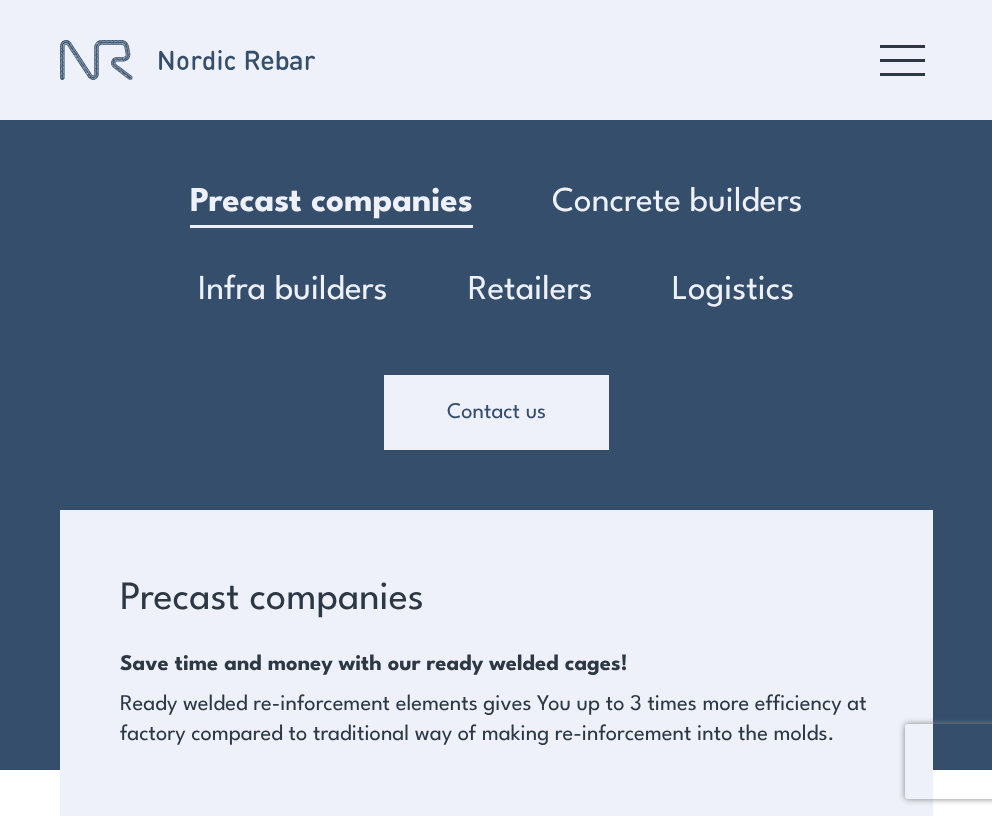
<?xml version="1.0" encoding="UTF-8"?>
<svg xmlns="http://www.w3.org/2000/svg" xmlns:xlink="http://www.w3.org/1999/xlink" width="992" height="816">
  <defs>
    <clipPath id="clip1"><path d="M 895 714 h 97 v 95 h -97 z m 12.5 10 h 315 c 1.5 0 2.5 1 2.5 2.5 v 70 c 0 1.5 -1 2.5 -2.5 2.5 h -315 c -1.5 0 -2.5 -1 -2.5 -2.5 v -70 c 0 -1.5 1 -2.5 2.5 -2.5 z" clip-rule="evenodd" /></clipPath>
  </defs>
  <rect width="100%" height="100%" fill="#ffffff" />
  <rect width="992" height="120" fill="#eef1fa" />
  <image x="60" y="40" width="255" height="40" xlink:href="image1.png" />
  <rect x="880" y="45" width="45" height="3" fill="#2c3844" />
  <rect x="880" y="59" width="45" height="3" fill="#2c3844" />
  <rect x="880" y="73" width="45" height="3" fill="#2c3844" />
  <rect y="120" width="992" height="650" fill="#344e6b" />
  <rect x="190" y="225" width="283" height="3" fill="#eef1fa" />
  <rect x="384" y="375" width="225" height="75" fill="#eef1fa" />
  <rect x="60" y="510" width="873" height="306" fill="#eef1fa" />
  <g clip-path="url(#clip1)">
    <rect x="905" y="724" width="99" height="75" rx="2.5" fill="#808080" filter="blur(3px)" />
  </g>
  <text x="190" y="211" style="font-family: League Spartan; font-size: 35px; font-weight: bold; fill: #eef1fa">Precast companies</text>
  <text x="552" y="211" style="font-family: League Spartan; font-size: 35px; fill: #eef1fa">Concrete builders</text>
  <text x="198" y="299" style="font-family: League Spartan; font-size: 35px; fill: #eef1fa">Infra builders</text>
  <text x="468" y="299" style="font-family: League Spartan; font-size: 35px; fill: #eef1fa">Retailers</text>
  <text x="672" y="299" style="font-family: League Spartan; font-size: 35px; fill: #eef1fa">Logistics</text>
  <text x="447" y="418" style="font-family: League Spartan; font-size: 22.5px; fill: #344e6b">Contact us</text>
  <text x="120" y="609" style="font-family: League Spartan; font-size: 40px; fill: #2c3844">Precast companies</text>
  <text x="120" y="670" style="font-family: League Spartan; font-size: 22.5px; font-weight: bold; fill: #2c3844">Save time and money with our ready welded cages!</text>
  <text x="120" y="710" style="font-family: League Spartan; font-size: 22.5px; fill: #2c3844">Ready welded re-inforcement elements gives You up to 3 times more efficiency at</text>
  <text x="120" y="740" style="font-family: League Spartan; font-size: 22.5px; fill: #2c3844">factory compared to traditional way of making re-inforcement into the molds.</text>
</svg>
